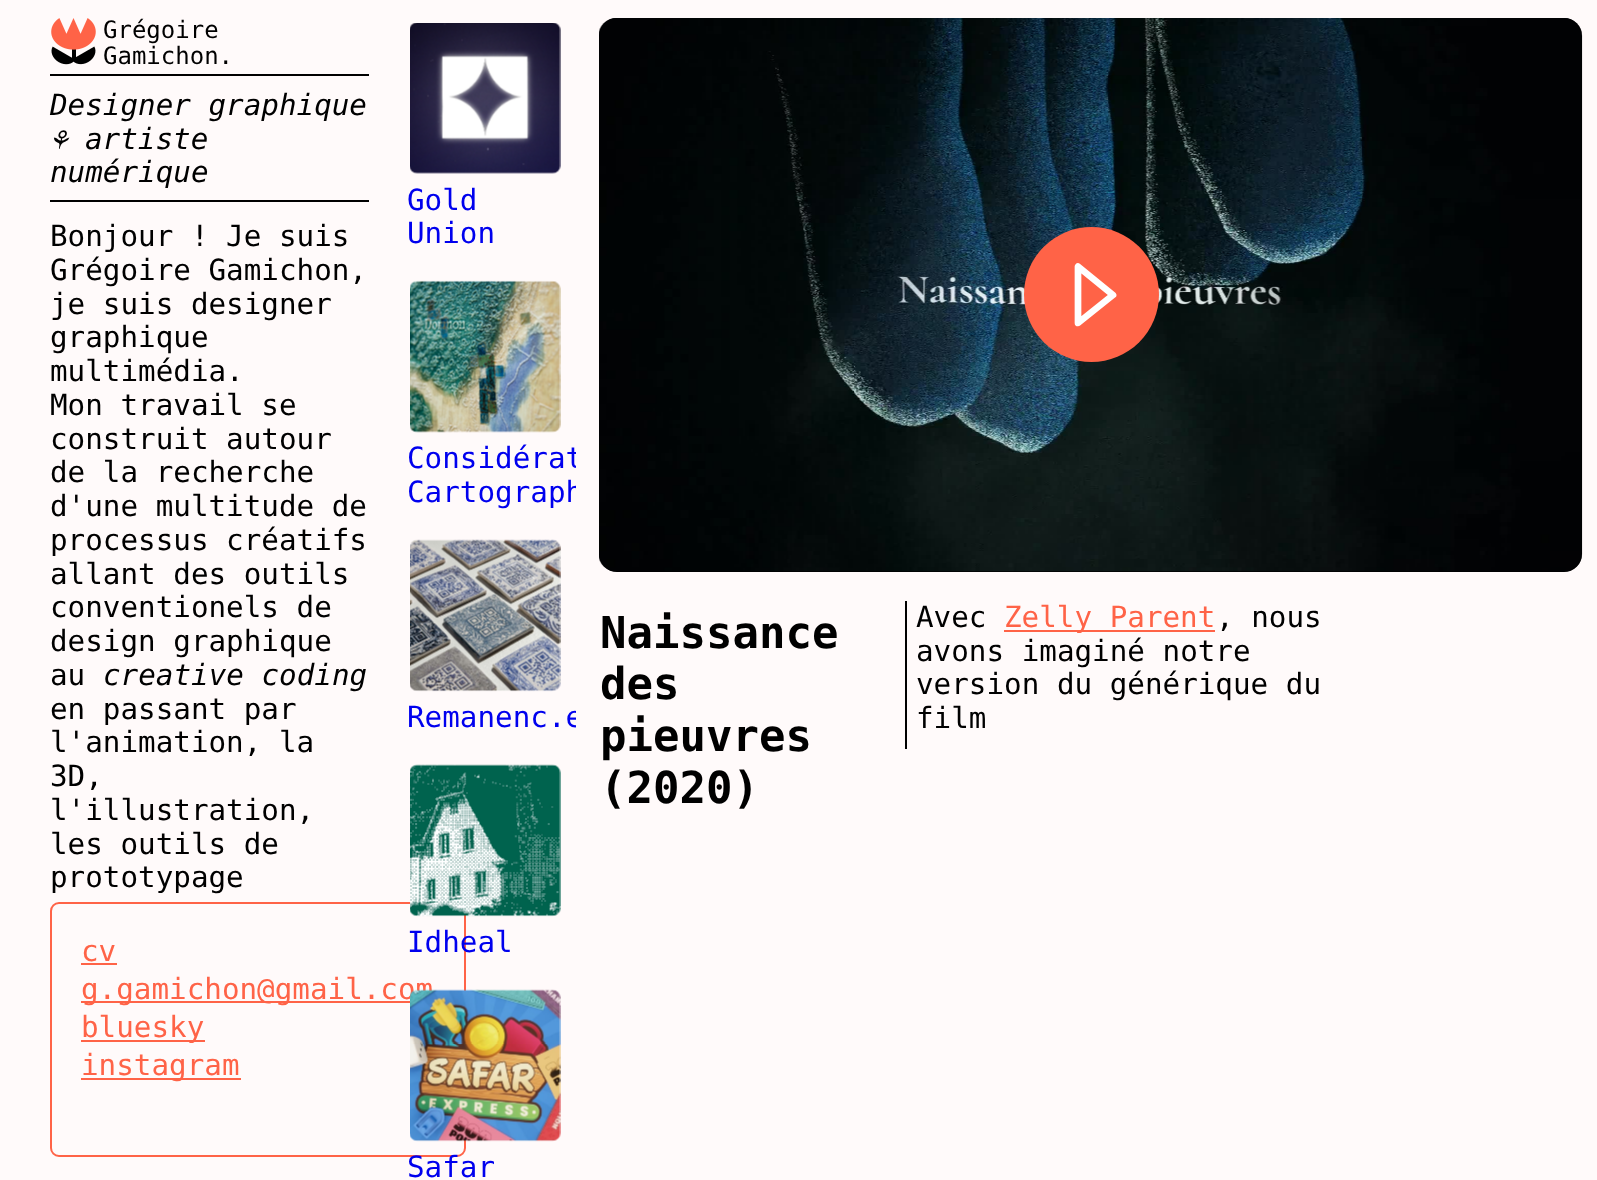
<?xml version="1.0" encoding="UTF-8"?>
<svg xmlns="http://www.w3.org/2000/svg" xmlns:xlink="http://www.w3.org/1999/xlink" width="1597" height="1180">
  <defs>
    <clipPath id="clip1"><rect x="394" y="18" width="182" height="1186" /></clipPath>
  </defs>
  <rect width="100%" height="100%" fill="#fffafa" />
  <image x="51" y="18" width="45" height="47" xlink:href="image1.png" />
  <rect x="50" y="74" width="319" height="2" fill="#000000" />
  <rect x="50" y="200" width="319" height="2" fill="#000000" />
  <rect x="51" y="903" width="414" height="253" rx="8" fill="none" stroke="#ff6347" stroke-width="2" />
  <rect x="81" y="963" width="36" height="2" fill="#ff6347" />
  <rect x="81" y="1001" width="329" height="2" fill="#ff6347" />
  <rect x="81" y="1040" width="124" height="2" fill="#ff6347" />
  <rect x="81" y="1078" width="160" height="2" fill="#ff6347" />
  <image x="410" y="23" width="151" height="151" xlink:href="image2.png" />
  <image x="410" y="280" width="151" height="153" xlink:href="image3.png" />
  <image x="410" y="539" width="151" height="153" xlink:href="image4.png" />
  <image x="410" y="764" width="151" height="153" xlink:href="image5.png" />
  <rect x="599" y="18" width="983" height="554" rx="18" fill="#000000" />
  <image x="599" y="18" width="984" height="554" xlink:href="image7.png" />
  <circle cx="1091.5" cy="294.5" r="67.5" fill="#ff6347" />
  <path d="M 1078 266.5 v 56.5 l 35 -28 z" fill="none" stroke="#ffffff" stroke-width="6.7" stroke-linecap="round" stroke-linejoin="round" />
  <rect x="905" y="601" width="2" height="148" fill="#000000" />
  <rect x="1004" y="630" width="211" height="2" fill="#ff6347" />
  <text x="103" y="38" style="font-family: DejaVu Sans Mono; font-size: 24px; fill: #000000">Grégoire</text>
  <text x="103" y="64" style="font-family: DejaVu Sans Mono; font-size: 24px; fill: #000000">Gamichon.</text>
  <text x="50" y="115" style="font-family: DejaVu Sans Mono; font-size: 29.25px; font-style: italic; fill: #000000">Designer graphique</text>
  <text x="50" y="149" style="font-family: 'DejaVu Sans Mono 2'; font-size: 29.25px; font-style: italic; fill: #000000">⚘</text>
  <text x="85" y="149" style="font-family: DejaVu Sans Mono; font-size: 29.25px; font-style: italic; fill: #000000">artiste</text>
  <text x="50" y="182" style="font-family: DejaVu Sans Mono; font-size: 29.25px; font-style: italic; fill: #000000">numérique</text>
  <text x="50" y="246" style="font-family: DejaVu Sans Mono; font-size: 29.25px; fill: #000000">Bonjour ! Je suis</text>
  <text x="50" y="280" style="font-family: DejaVu Sans Mono; font-size: 29.25px; fill: #000000">Grégoire Gamichon,</text>
  <text x="50" y="314" style="font-family: DejaVu Sans Mono; font-size: 29.25px; fill: #000000">je suis designer</text>
  <text x="50" y="347" style="font-family: DejaVu Sans Mono; font-size: 29.25px; fill: #000000">graphique</text>
  <text x="50" y="381" style="font-family: DejaVu Sans Mono; font-size: 29.25px; fill: #000000">multimédia.</text>
  <text x="50" y="415" style="font-family: DejaVu Sans Mono; font-size: 29.25px; fill: #000000">Mon travail se</text>
  <text x="50" y="449" style="font-family: DejaVu Sans Mono; font-size: 29.25px; fill: #000000">construit autour</text>
  <text x="50" y="482" style="font-family: DejaVu Sans Mono; font-size: 29.25px; fill: #000000">de la recherche</text>
  <text x="50" y="516" style="font-family: DejaVu Sans Mono; font-size: 29.25px; fill: #000000">d'une multitude de</text>
  <text x="50" y="550" style="font-family: DejaVu Sans Mono; font-size: 29.25px; fill: #000000">processus créatifs</text>
  <text x="50" y="584" style="font-family: DejaVu Sans Mono; font-size: 29.25px; fill: #000000">allant des outils</text>
  <text x="50" y="617" style="font-family: DejaVu Sans Mono; font-size: 29.25px; fill: #000000">conventionels de</text>
  <text x="50" y="651" style="font-family: DejaVu Sans Mono; font-size: 29.25px; fill: #000000">design graphique</text>
  <text x="50" y="685" style="font-family: DejaVu Sans Mono; font-size: 29.25px; fill: #000000">au</text>
  <text x="103" y="685" style="font-family: DejaVu Sans Mono; font-size: 29.25px; font-style: italic; fill: #000000">creative coding</text>
  <text x="50" y="719" style="font-family: DejaVu Sans Mono; font-size: 29.25px; fill: #000000">en passant par</text>
  <text x="50" y="752" style="font-family: DejaVu Sans Mono; font-size: 29.25px; fill: #000000">l'animation, la</text>
  <text x="50" y="786" style="font-family: DejaVu Sans Mono; font-size: 29.25px; fill: #000000">3D,</text>
  <text x="50" y="820" style="font-family: DejaVu Sans Mono; font-size: 29.25px; fill: #000000">l'illustration,</text>
  <text x="50" y="854" style="font-family: DejaVu Sans Mono; font-size: 29.25px; fill: #000000">les outils de</text>
  <text x="50" y="887" style="font-family: DejaVu Sans Mono; font-size: 29.25px; fill: #000000">prototypage</text>
  <text x="81" y="961" style="font-family: DejaVu Sans Mono; font-size: 29.25px; fill: #ff6347">cv</text>
  <text x="81" y="999" style="font-family: DejaVu Sans Mono; font-size: 29.25px; fill: #ff6347">g.gamichon@gmail.com</text>
  <text x="81" y="1037" style="font-family: DejaVu Sans Mono; font-size: 29.25px; fill: #ff6347">bluesky</text>
  <text x="81" y="1075" style="font-family: DejaVu Sans Mono; font-size: 29.25px; fill: #ff6347">instagram</text>
  <text x="407" y="210" style="font-family: DejaVu Sans Mono; font-size: 29.25px; fill: #0000ee">Gold</text>
  <text x="407" y="243" style="font-family: DejaVu Sans Mono; font-size: 29.25px; fill: #0000ee">Union</text>
  <g clip-path="url(#clip1)">
    <text x="407" y="468" style="font-family: DejaVu Sans Mono; font-size: 29.25px; fill: #0000ee">Considérat</text>
    <text x="407" y="502" style="font-family: DejaVu Sans Mono; font-size: 29.25px; fill: #0000ee">Cartograph</text>
    <text x="407" y="727" style="font-family: DejaVu Sans Mono; font-size: 29.25px; fill: #0000ee">Remanenc.e</text>
  </g>
  <text x="407" y="952" style="font-family: DejaVu Sans Mono; font-size: 29.25px; fill: #0000ee">Idheal</text>
  <image x="410" y="989" width="151" height="153" xlink:href="image6.png" />
  <text x="407" y="1177" style="font-family: DejaVu Sans Mono; font-size: 29.25px; fill: #0000ee">Safar</text>
  <text x="600" y="648" style="font-family: DejaVu Sans Mono; font-size: 44px; font-weight: bold; fill: #000000">Naissance</text>
  <text x="600" y="699" style="font-family: DejaVu Sans Mono; font-size: 44px; font-weight: bold; fill: #000000">des</text>
  <text x="600" y="751" style="font-family: DejaVu Sans Mono; font-size: 44px; font-weight: bold; fill: #000000">pieuvres</text>
  <text x="600" y="803" style="font-family: DejaVu Sans Mono; font-size: 44px; font-weight: bold; fill: #000000">(2020)</text>
  <text x="916" y="627" style="font-family: DejaVu Sans Mono; font-size: 29.25px; fill: #000000">Avec</text>
  <text x="1004" y="627" style="font-family: DejaVu Sans Mono; font-size: 29.25px; fill: #ff6347">Zelly Parent</text>
  <text x="1216" y="627" style="font-family: DejaVu Sans Mono; font-size: 29.25px; fill: #000000">, nous</text>
  <text x="916" y="661" style="font-family: DejaVu Sans Mono; font-size: 29.25px; fill: #000000">avons imaginé notre</text>
  <text x="916" y="694" style="font-family: DejaVu Sans Mono; font-size: 29.25px; fill: #000000">version du générique du</text>
  <text x="916" y="728" style="font-family: DejaVu Sans Mono; font-size: 29.25px; fill: #000000">film</text>
</svg>
